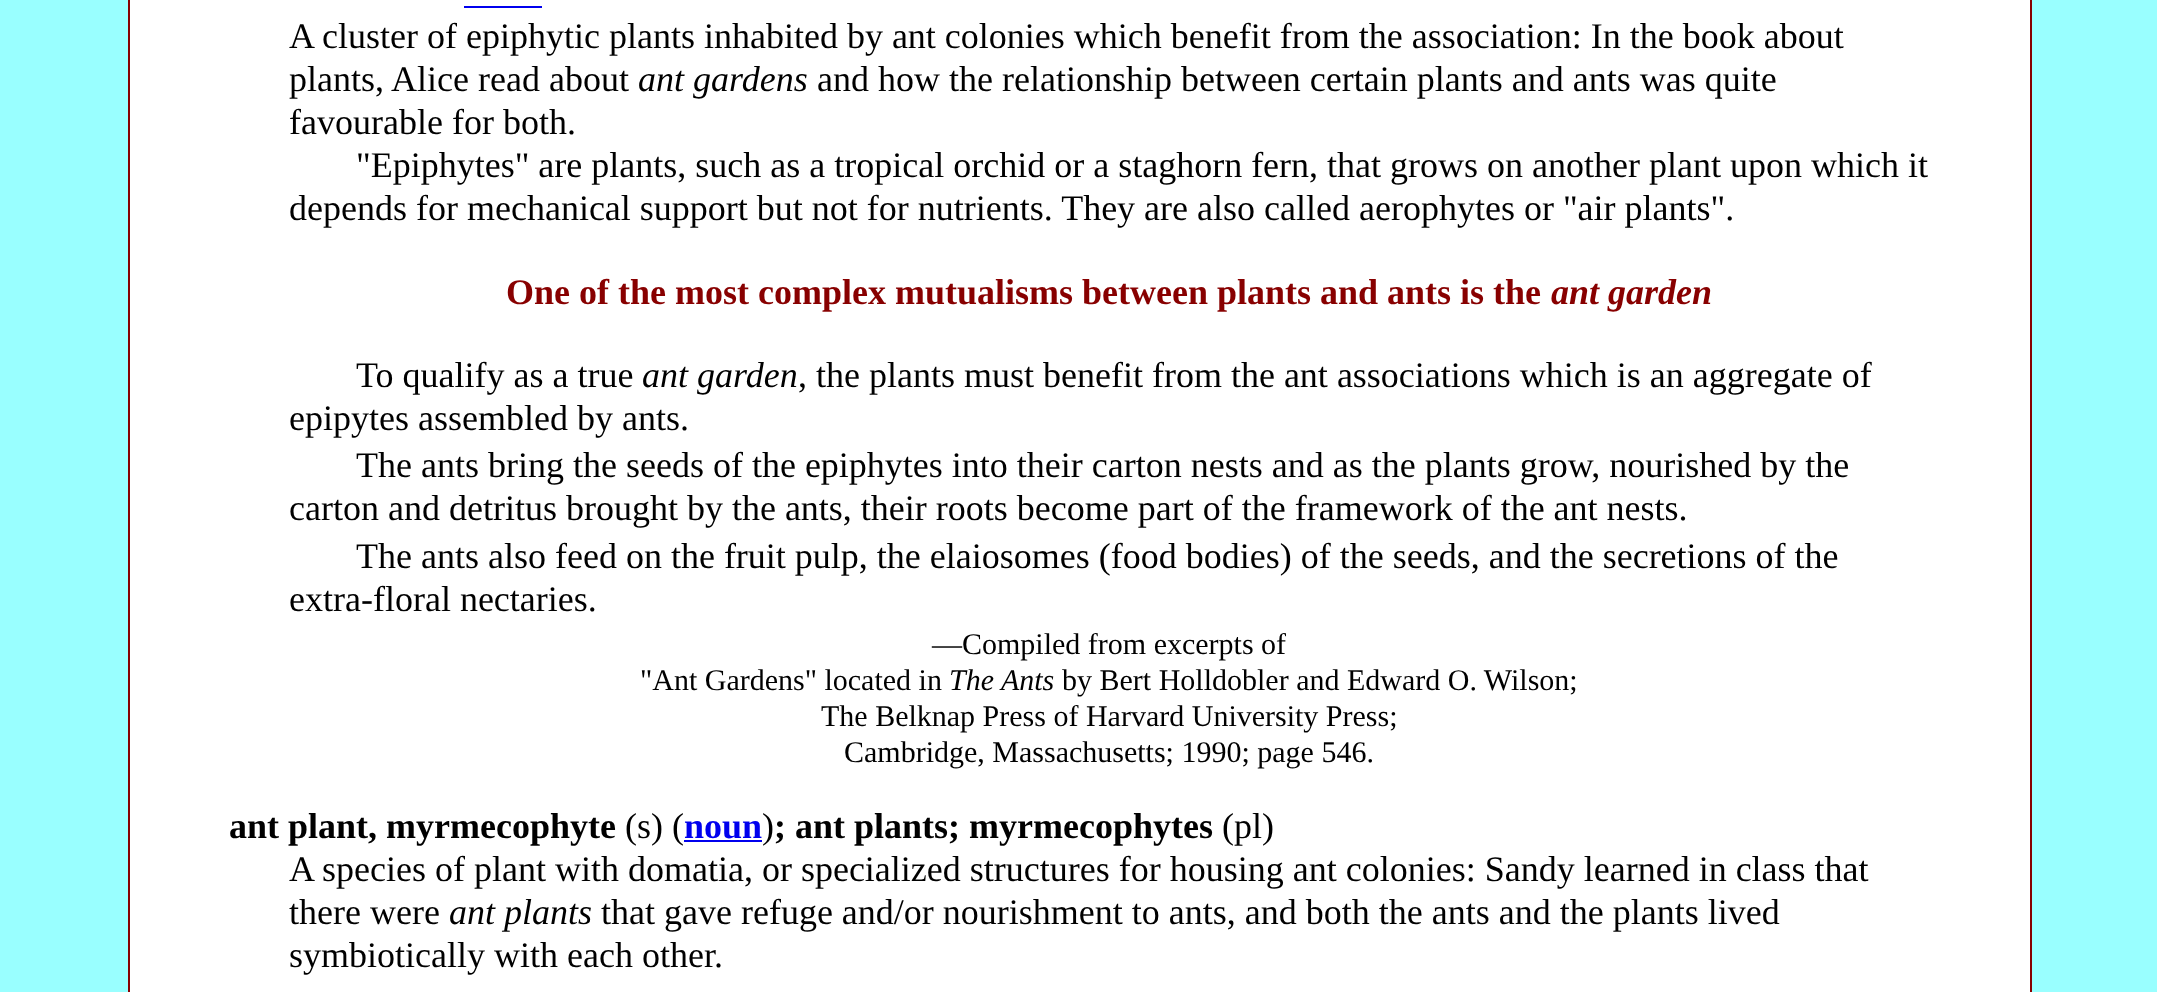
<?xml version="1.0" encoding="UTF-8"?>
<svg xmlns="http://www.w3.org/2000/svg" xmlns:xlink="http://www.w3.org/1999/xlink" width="2157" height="992">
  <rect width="100%" height="100%" fill="#99ffff" />
  <rect x="129" y="-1" width="1902" height="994" fill="#ffffff" stroke="#880000" stroke-width="2" />
  <rect x="464" y="6" width="78" height="2" fill="#0000ee" />
  <rect x="684" y="840" width="78" height="2" fill="#0000ee" />
  <text x="289" y="48" style="font-family: Liberation Serif; font-size: 36px; fill: #000000">A cluster of epiphytic plants inhabited by ant colonies which benefit from the association: In the book about</text>
  <text x="289" y="91" style="font-family: Liberation Serif; font-size: 36px; fill: #000000">plants, Alice read about</text>
  <text x="638" y="91" style="font-family: Liberation Serif; font-size: 36px; font-style: italic; fill: #000000">ant gardens</text>
  <text x="817" y="91" style="font-family: Liberation Serif; font-size: 36px; fill: #000000">and how the relationship between certain plants and ants was quite</text>
  <text x="289" y="134" style="font-family: Liberation Serif; font-size: 36px; fill: #000000">favourable for both.</text>
  <text x="356" y="177" style="font-family: Liberation Serif; font-size: 36px; fill: #000000">"Epiphytes" are plants, such as a tropical orchid or a staghorn fern, that grows on another plant upon which it</text>
  <text x="289" y="220" style="font-family: Liberation Serif; font-size: 36px; fill: #000000">depends for mechanical support but not for nutrients. They are also called aerophytes or "air plants".</text>
  <text x="506" y="304" style="font-family: Liberation Serif; font-size: 36px; font-weight: bold; fill: #880000">One of the most complex mutualisms between plants and ants is the</text>
  <text x="1551" y="304" style="font-family: Liberation Serif; font-size: 36px; font-weight: bold; font-style: italic; fill: #880000">ant garden</text>
  <text x="356" y="387" style="font-family: Liberation Serif; font-size: 36px; fill: #000000">To qualify as a true</text>
  <text x="642" y="387" style="font-family: Liberation Serif; font-size: 36px; font-style: italic; fill: #000000">ant garden</text>
  <text x="798" y="387" style="font-family: Liberation Serif; font-size: 36px; fill: #000000">, the plants must benefit from the ant associations which is an aggregate of</text>
  <text x="289" y="430" style="font-family: Liberation Serif; font-size: 36px; fill: #000000">epipytes assembled by ants.</text>
  <text x="356" y="477" style="font-family: Liberation Serif; font-size: 36px; fill: #000000">The ants bring the seeds of the epiphytes into their carton nests and as the plants grow, nourished by the</text>
  <text x="289" y="520" style="font-family: Liberation Serif; font-size: 36px; fill: #000000">carton and detritus brought by the ants, their roots become part of the framework of the ant nests.</text>
  <text x="356" y="568" style="font-family: Liberation Serif; font-size: 36px; fill: #000000">The ants also feed on the fruit pulp, the elaiosomes (food bodies) of the seeds, and the secretions of the</text>
  <text x="289" y="611" style="font-family: Liberation Serif; font-size: 36px; fill: #000000">extra-floral nectaries.</text>
  <text x="932" y="654" style="font-family: Liberation Serif; font-size: 30px; fill: #000000">—Compiled from excerpts of</text>
  <text x="640" y="690" style="font-family: Liberation Serif; font-size: 30px; fill: #000000">"Ant Gardens" located in</text>
  <text x="949" y="690" style="font-family: Liberation Serif; font-size: 30px; font-style: italic; fill: #000000">The Ants</text>
  <text x="1062" y="690" style="font-family: Liberation Serif; font-size: 30px; fill: #000000">by Bert Holldobler and Edward O. Wilson;</text>
  <text x="821" y="726" style="font-family: Liberation Serif; font-size: 30px; fill: #000000">The Belknap Press of Harvard University Press;</text>
  <text x="844" y="762" style="font-family: Liberation Serif; font-size: 30px; fill: #000000">Cambridge, Massachusetts; 1990; page 546.</text>
  <text x="229" y="838" style="font-family: Liberation Serif; font-size: 36px; font-weight: bold; fill: #000000">ant plant, myrmecophyte</text>
  <text x="625" y="838" style="font-family: Liberation Serif; font-size: 36px; fill: #000000">(s) (</text>
  <text x="684" y="838" style="font-family: Liberation Serif; font-size: 36px; font-weight: bold; fill: #0000ee">noun</text>
  <text x="762" y="838" style="font-family: Liberation Serif; font-size: 36px; fill: #000000">)</text>
  <text x="774" y="838" style="font-family: Liberation Serif; font-size: 36px; font-weight: bold; fill: #000000">; ant plants; myrmecophytes</text>
  <text x="1222" y="838" style="font-family: Liberation Serif; font-size: 36px; fill: #000000">(pl)</text>
  <text x="289" y="881" style="font-family: Liberation Serif; font-size: 36px; fill: #000000">A species of plant with domatia, or specialized structures for housing ant colonies: Sandy learned in class that</text>
  <text x="289" y="924" style="font-family: Liberation Serif; font-size: 36px; fill: #000000">there were</text>
  <text x="449" y="924" style="font-family: Liberation Serif; font-size: 36px; font-style: italic; fill: #000000">ant plants</text>
  <text x="601" y="924" style="font-family: Liberation Serif; font-size: 36px; fill: #000000">that gave refuge and/or nourishment to ants, and both the ants and the plants lived</text>
  <text x="289" y="967" style="font-family: Liberation Serif; font-size: 36px; fill: #000000">symbiotically with each other.</text>
</svg>
